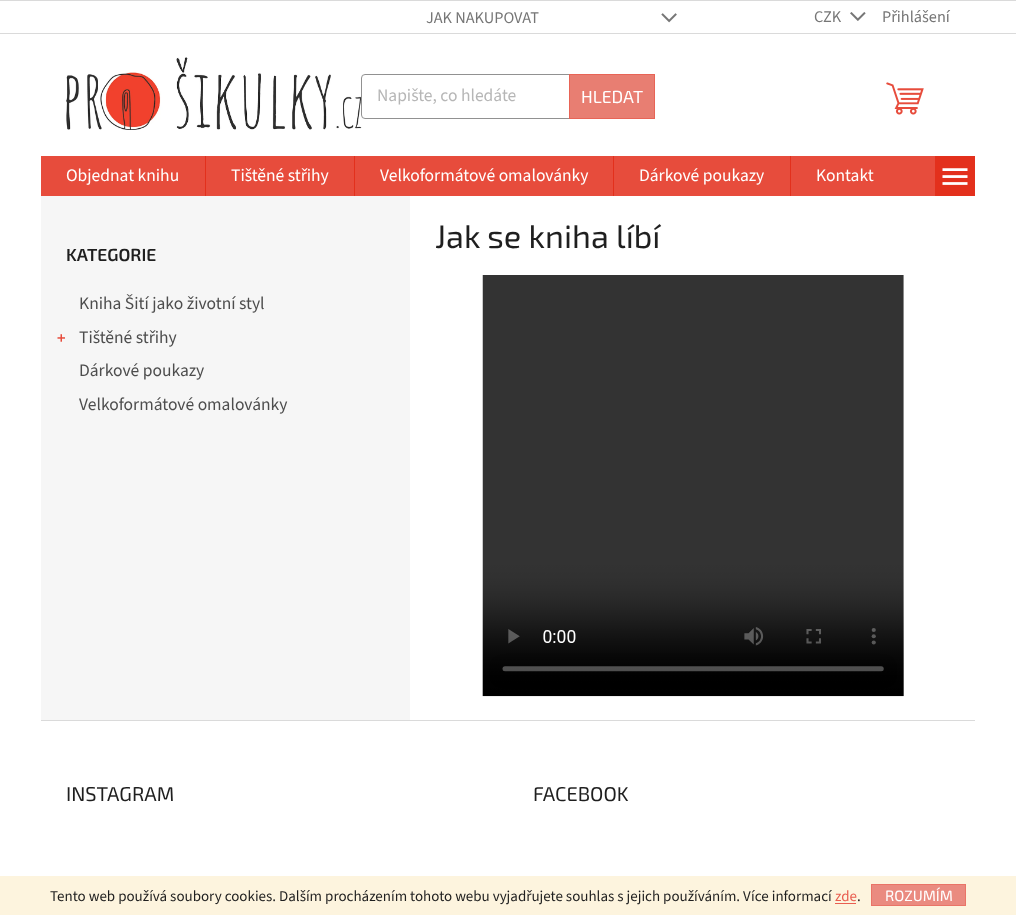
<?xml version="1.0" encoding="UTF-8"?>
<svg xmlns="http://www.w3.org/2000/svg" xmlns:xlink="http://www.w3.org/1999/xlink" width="1034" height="915">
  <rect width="100%" height="100%" fill="#ffffff" />
  <rect width="1016" height="1" fill="#dadada" />
  <rect y="33" width="1016" height="1" fill="#dadada" />
  <image x="661" y="13" width="16" height="10" xlink:href="image1.png" />
  <image x="850" y="12" width="16" height="9" xlink:href="image2.png" />
  <image x="66" y="57" width="296" height="73" xlink:href="image3.png" />
  <rect x="361.5" y="74.5" width="293" height="44" rx="3.5" fill="#ffffff" stroke="#919191" />
  <rect x="569.5" y="74.5" width="85" height="44" fill="#e87e72" stroke="#e86456" />
  <image x="886" y="82" width="38" height="33" xlink:href="image4.png" />
  <rect x="41" y="156" width="894" height="40" fill="#e74c3c" />
  <rect x="205" y="156" width="1" height="40" fill="#e3301c" />
  <rect x="354" y="156" width="1" height="40" fill="#e3301c" />
  <rect x="613" y="156" width="1" height="40" fill="#e3301c" />
  <rect x="790" y="156" width="1" height="40" fill="#e3301c" />
  <rect x="935" y="156" width="40" height="40" fill="#e3301c" />
  <image x="942" y="168" width="26" height="17" xlink:href="image5.png" />
  <image x="482" y="275" width="422" height="422" xlink:href="image6.png" />
  <rect x="41" y="196" width="369" height="524" fill="#f6f6f6" />
  <image x="57" y="334" width="8" height="8" xlink:href="image7.png" />
  <rect x="41" y="720" width="934" height="1" fill="#dadada" />
  <rect y="876" width="1016" height="39" fill="#fdf4de" />
  <rect x="835" y="903" width="21" height="1" fill="#e95e50" />
  <rect x="871.5" y="884.5" width="94" height="21" fill="#ea8b80" stroke="#ea7467" />
  <text x="426" y="23" style="font-family: 'Source Sans 3'; font-size: 16.25px; fill: #767676">JAK NAKUPOVAT</text>
  <text x="814" y="22" style="font-family: 'Source Sans 3'; font-size: 16.25px; fill: #767676">CZK</text>
  <text x="882" y="22" style="font-family: 'Source Sans 3'; font-size: 16.25px; fill: #767676">Přihlášení</text>
  <text x="377" y="101" style="font-family: 'Source Sans 3'; font-size: 17.5px; fill: #b6b6b6">Napište, co hledáte</text>
  <text x="581" y="103" style="font-family: 'Exo 2'; font-size: 17.5px; fill: #ffffff">HLEDAT</text>
  <text x="66" y="181" style="font-family: 'Source Sans 3'; font-size: 17.5px; fill: #ffffff">Objednat knihu</text>
  <text x="231" y="181" style="font-family: 'Source Sans 3'; font-size: 17.5px; fill: #ffffff">Tištěné střihy</text>
  <text x="380" y="181" style="font-family: 'Source Sans 3'; font-size: 17.5px; fill: #ffffff">Velkoformátové omalovánky</text>
  <text x="639" y="181" style="font-family: 'Source Sans 3'; font-size: 17.5px; fill: #ffffff">Dárkové poukazy</text>
  <text x="816" y="181" style="font-family: 'Source Sans 3'; font-size: 17.5px; fill: #ffffff">Kontakt</text>
  <text x="435" y="248" style="font-family: 'Exo 2'; font-size: 32.5px; fill: #1f1f1f">Jak se kniha líbí</text>
  <text x="66" y="261" style="font-family: 'Exo 2'; font-size: 17.5px; font-weight: 600; fill: #1f1f1f">KATEGORIE</text>
  <text x="79" y="309" style="font-family: 'Source Sans 3'; font-size: 17.5px; fill: #4d4d4d">Kniha Šití jako životní styl</text>
  <text x="79" y="343" style="font-family: 'Source Sans 3'; font-size: 17.5px; fill: #4d4d4d">Tištěné střihy</text>
  <text x="79" y="376" style="font-family: 'Source Sans 3'; font-size: 17.5px; fill: #4d4d4d">Dárkové poukazy</text>
  <text x="79" y="410" style="font-family: 'Source Sans 3'; font-size: 17.5px; fill: #4d4d4d">Velkoformátové omalovánky</text>
  <text x="66" y="801" style="font-family: 'Exo 2'; font-size: 20px; fill: #1f1f1f">INSTAGRAM</text>
  <text x="533" y="801" style="font-family: 'Exo 2'; font-size: 20px; fill: #1f1f1f">FACEBOOK</text>
  <text x="50" y="901" style="font-family: 'Source Sans 3'; font-size: 15px; fill: #1f1f1f">Tento web používá soubory cookies. Dalším procházením tohoto webu vyjadřujete souhlas s jejich používáním. Více informací</text>
  <text x="835" y="901" style="font-family: 'Source Sans 3'; font-size: 15px; fill: #e95e50">zde</text>
  <text x="857" y="901" style="font-family: 'Source Sans 3'; font-size: 15px; fill: #1f1f1f">.</text>
  <text x="885" y="901" style="font-family: 'Exo 2'; font-size: 15px; fill: #ffffff">ROZUMÍM</text>
</svg>
